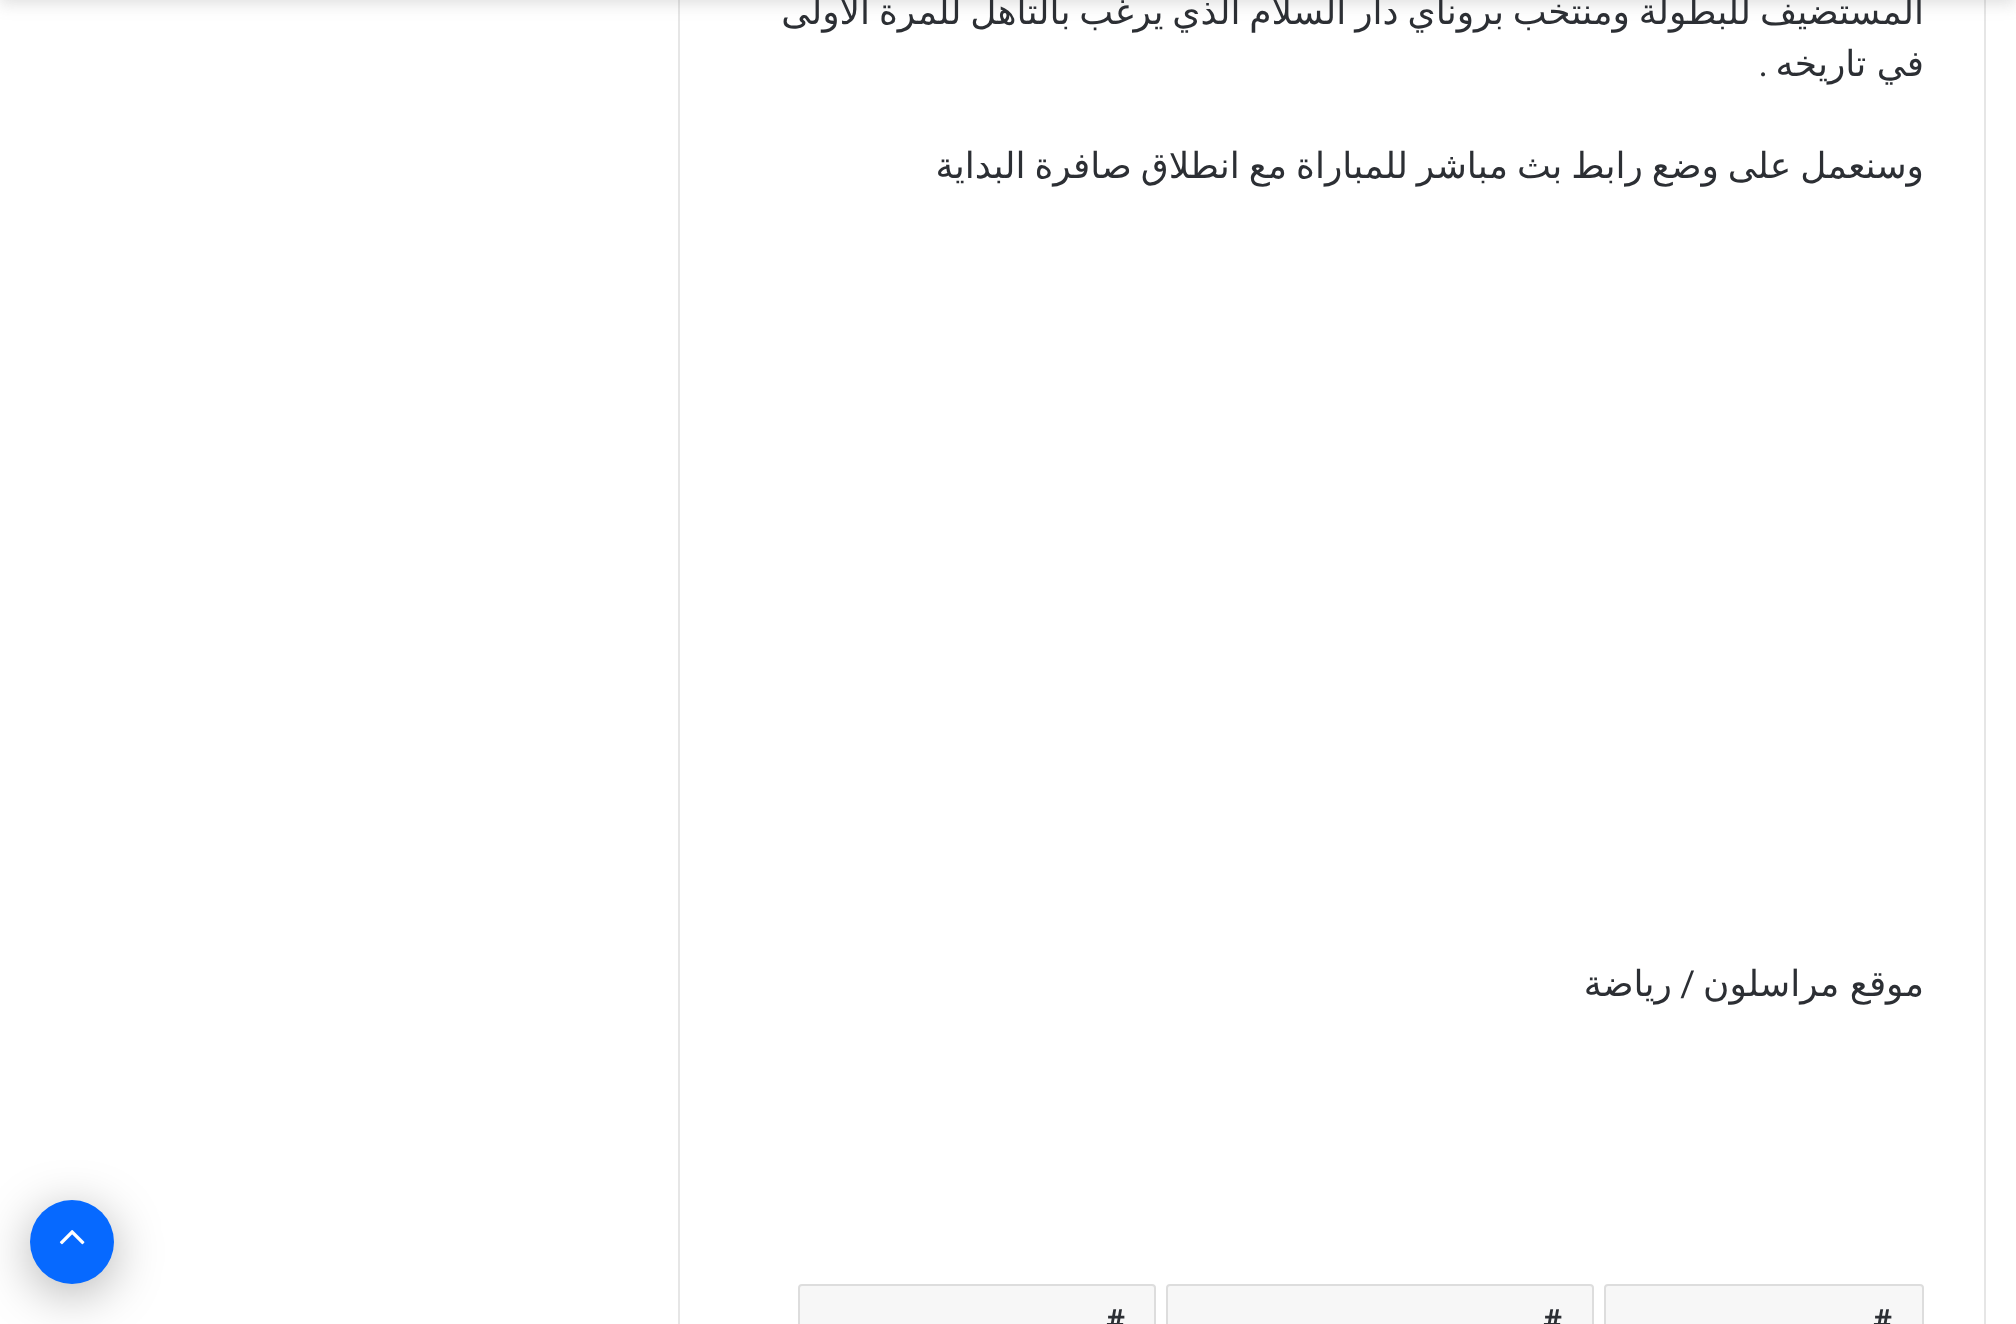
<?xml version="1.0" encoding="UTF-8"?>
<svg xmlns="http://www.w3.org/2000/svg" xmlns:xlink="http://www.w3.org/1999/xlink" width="2016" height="1324">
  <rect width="100%" height="100%" fill="#ffffff" />
  <rect x="679" y="-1" width="1306" height="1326" fill="none" stroke="#e6e6e6" stroke-width="2" />
  <rect y="-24" width="2016" height="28" fill="#636363" fill-opacity="0.2" filter="blur(8px)" />
  <rect x="1604" y="1284" width="320" height="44" rx="4" fill="#f7f7f7" />
  <rect x="1605" y="1285" width="318" height="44" rx="3" fill="none" stroke="#000000" stroke-opacity="0.1" stroke-width="2" />
  <rect x="1166" y="1284" width="428" height="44" rx="4" fill="#f7f7f7" />
  <rect x="1167" y="1285" width="426" height="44" rx="3" fill="none" stroke="#000000" stroke-opacity="0.1" stroke-width="2" />
  <rect x="798" y="1284" width="358" height="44" rx="4" fill="#f7f7f7" />
  <rect x="799" y="1285" width="356" height="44" rx="3" fill="none" stroke="#000000" stroke-opacity="0.1" stroke-width="2" />
  <rect x="30" y="1210" width="84" height="84" rx="42" fill="#000000" fill-opacity="0.3" filter="blur(25px)" />
  <circle cx="72" cy="1242" r="42" fill="#0669ff" />
  <image x="59" y="1230" width="26" height="15" xlink:href="image1.png" />
  <text x="1924" y="24" word-spacing="-2.5" style="font-family: DejaVu Sans; font-size: 36px; direction: rtl; fill: #2c2f34">المستضيف للبطولة ومنتخب بروناي دار السلام الذي يرغب بالتأهل للمرة الأولى</text>
  <text x="1924" y="76" word-spacing="-1" style="font-family: DejaVu Sans; font-size: 36px; direction: rtl; fill: #2c2f34">في تاريخه</text>
  <text x="1768" y="76" style="font-family: Roboto; font-size: 36px; direction: rtl; fill: #2c2f34">.</text>
  <text x="1924" y="178" word-spacing="-2.5" style="font-family: DejaVu Sans; font-size: 36px; direction: rtl; fill: #2c2f34">وسنعمل على وضع رابط بث مباشر للمباراة مع انطلاق صافرة البداية</text>
  <text x="1924" y="996" word-spacing="-1" style="font-family: DejaVu Sans; font-size: 36px; direction: rtl; fill: #2c2f34">موقع مراسلون</text>
  <text x="1695" y="996" style="font-family: Roboto; font-size: 36px; direction: rtl; fill: #2c2f34">/</text>
  <text x="1672" y="996" style="font-family: DejaVu Sans; font-size: 36px; direction: rtl; fill: #2c2f34">رياضة</text>
  <text x="1873" y="1332" style="font-family: Roboto; font-size: 32px; font-weight: bold; fill: #2c2f34">#</text>
  <text x="1543" y="1332" style="font-family: Roboto; font-size: 32px; font-weight: bold; fill: #2c2f34">#</text>
  <text x="1106" y="1332" style="font-family: Roboto; font-size: 32px; font-weight: bold; fill: #2c2f34">#</text>
</svg>
